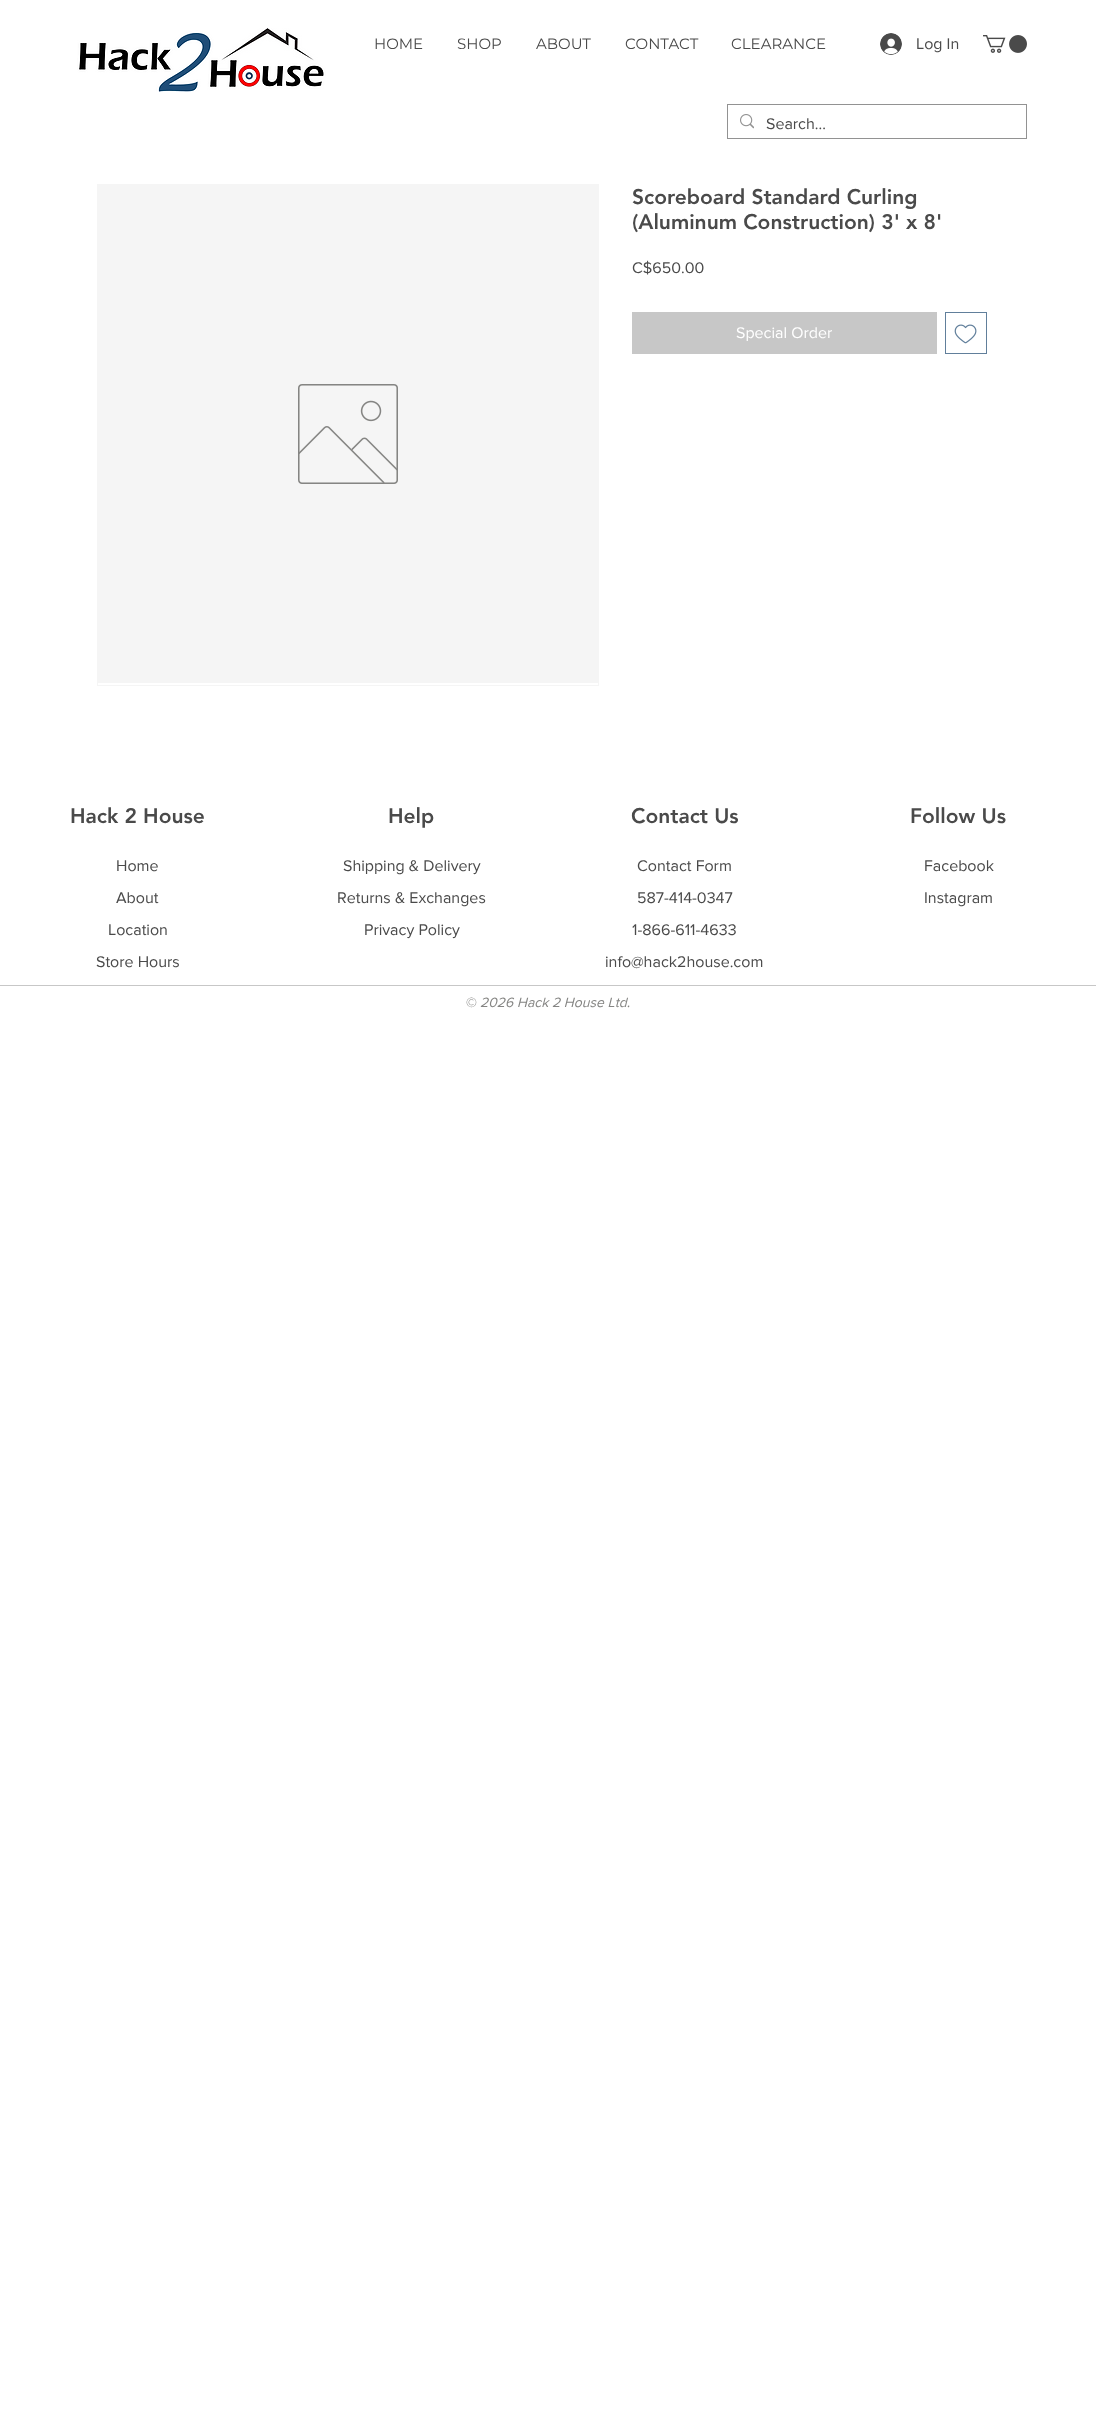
<?xml version="1.0" encoding="UTF-8"?>
<svg xmlns="http://www.w3.org/2000/svg" xmlns:xlink="http://www.w3.org/1999/xlink" width="1096" height="2410">
  <rect width="100%" height="100%" fill="#ffffff" />
  <image x="77" y="28" width="249" height="64" xlink:href="image1.png" />
  <image x="880" y="33" width="22" height="22" xlink:href="image2.png" />
  <image x="983" y="35" width="44" height="18" xlink:href="image3.png" />
  <rect x="727.5" y="104.5" width="299" height="34" fill="none" stroke="#929292" />
  <image x="740" y="114" width="14" height="15" xlink:href="image4.png" />
  <rect x="97.5" y="184.5" width="501" height="501" fill="none" stroke="#f5f5f5" />
  <rect x="98" y="185" width="500" height="498" fill="#f5f5f5" />
  <image x="298" y="384" width="100" height="100" xlink:href="image5.png" />
  <rect x="632" y="312" width="305" height="42" fill="#c7c7c7" />
  <rect x="945.5" y="312.5" width="41" height="41" fill="none" stroke="#617f9b" />
  <image x="954" y="324" width="23" height="20" xlink:href="image6.png" />
  <rect y="985" width="1096" height="1" fill="#c7c7c7" />
  <text x="374" y="49" style="font-family: Montserrat; font-size: 15px; fill: #4a4a4a">HOME</text>
  <text x="457" y="49" style="font-family: Montserrat; font-size: 15px; fill: #4a4a4a">SHOP</text>
  <text x="536" y="49" style="font-family: Montserrat; font-size: 15px; fill: #4a4a4a">ABOUT</text>
  <text x="625" y="49" style="font-family: Montserrat; font-size: 15px; fill: #4a4a4a">CONTACT</text>
  <text x="731" y="49" style="font-family: Montserrat; font-size: 15px; fill: #4a4a4a">CLEARANCE</text>
  <text x="916" y="49" style="font-family: 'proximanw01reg'; font-size: 16px; fill: #4a4a4a">Log In</text>
  <text x="766" y="129" style="font-family: 'proximanw01reg'; font-size: 16px; fill: #4a4a4a">Search...</text>
  <text x="632" y="204" style="font-family: 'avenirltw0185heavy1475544'; font-size: 21px; font-weight: 900; fill: #4a4a4a">Scoreboard Standard Curling</text>
  <text x="632" y="229" style="font-family: 'avenirltw0185heavy1475544'; font-size: 21px; font-weight: 900; fill: #4a4a4a">(Aluminum Construction) 3' x 8'</text>
  <text x="632" y="273" style="font-family: 'proximanw01reg'; font-size: 16px; fill: #4a4a4a">C$650.00</text>
  <text x="736" y="338" style="font-family: 'proximanw01reg'; font-size: 16px; fill: #ffffff">Special Order</text>
  <text x="70" y="823" style="font-family: 'avenirltw0185heavy1475544'; font-size: 21px; font-weight: 900; fill: #4a4a4a">Hack 2 House</text>
  <text x="116" y="871" style="font-family: 'proximanw01reg'; font-size: 16px; fill: #4a4a4a">Home</text>
  <text x="116" y="903" style="font-family: 'proximanw01reg'; font-size: 16px; fill: #4a4a4a">About</text>
  <text x="108" y="935" style="font-family: 'proximanw01reg'; font-size: 16px; fill: #4a4a4a">Location</text>
  <text x="96" y="967" style="font-family: 'proximanw01reg'; font-size: 16px; fill: #4a4a4a">Store Hours</text>
  <text x="388" y="823" style="font-family: 'avenirltw0185heavy1475544'; font-size: 21px; font-weight: 900; fill: #4a4a4a">Help</text>
  <text x="343" y="871" style="font-family: 'proximanw01reg'; font-size: 16px; fill: #4a4a4a">Shipping &amp; Delivery</text>
  <text x="337" y="903" style="font-family: 'proximanw01reg'; font-size: 16px; fill: #4a4a4a">Returns &amp; Exchanges</text>
  <text x="364" y="935" style="font-family: 'proximanw01reg'; font-size: 16px; fill: #4a4a4a">Privacy Policy</text>
  <text x="631" y="823" style="font-family: 'avenirltw0185heavy1475544'; font-size: 21px; font-weight: 900; fill: #4a4a4a">Contact Us</text>
  <text x="637" y="871" style="font-family: 'proximanw01reg'; font-size: 16px; fill: #4a4a4a">Contact Form</text>
  <text x="637" y="903" style="font-family: 'proximanw01reg'; font-size: 16px; fill: #4a4a4a">587-414-0347</text>
  <text x="632" y="935" style="font-family: 'proximanw01reg'; font-size: 16px; fill: #4a4a4a">1-866-611-4633</text>
  <text x="605" y="967" style="font-family: 'proximanw01reg'; font-size: 16px; fill: #4a4a4a">info@hack2house.com</text>
  <text x="910" y="823" style="font-family: 'avenirltw0185heavy1475544'; font-size: 21px; font-weight: 900; fill: #4a4a4a">Follow Us</text>
  <text x="924" y="871" style="font-family: 'proximanw01reg'; font-size: 16px; fill: #4a4a4a">Facebook</text>
  <text x="924" y="903" style="font-family: 'proximanw01reg'; font-size: 16px; fill: #4a4a4a">Instagram</text>
  <text x="466" y="1007" style="font-family: 'proximanw01reg'; font-size: 14px; fill: #858583">©</text>
  <text x="480" y="1007" style="font-family: 'proximanw01reg'; font-size: 14px; font-style: italic; fill: #858583">2026 Hack 2 House Ltd.</text>
</svg>
